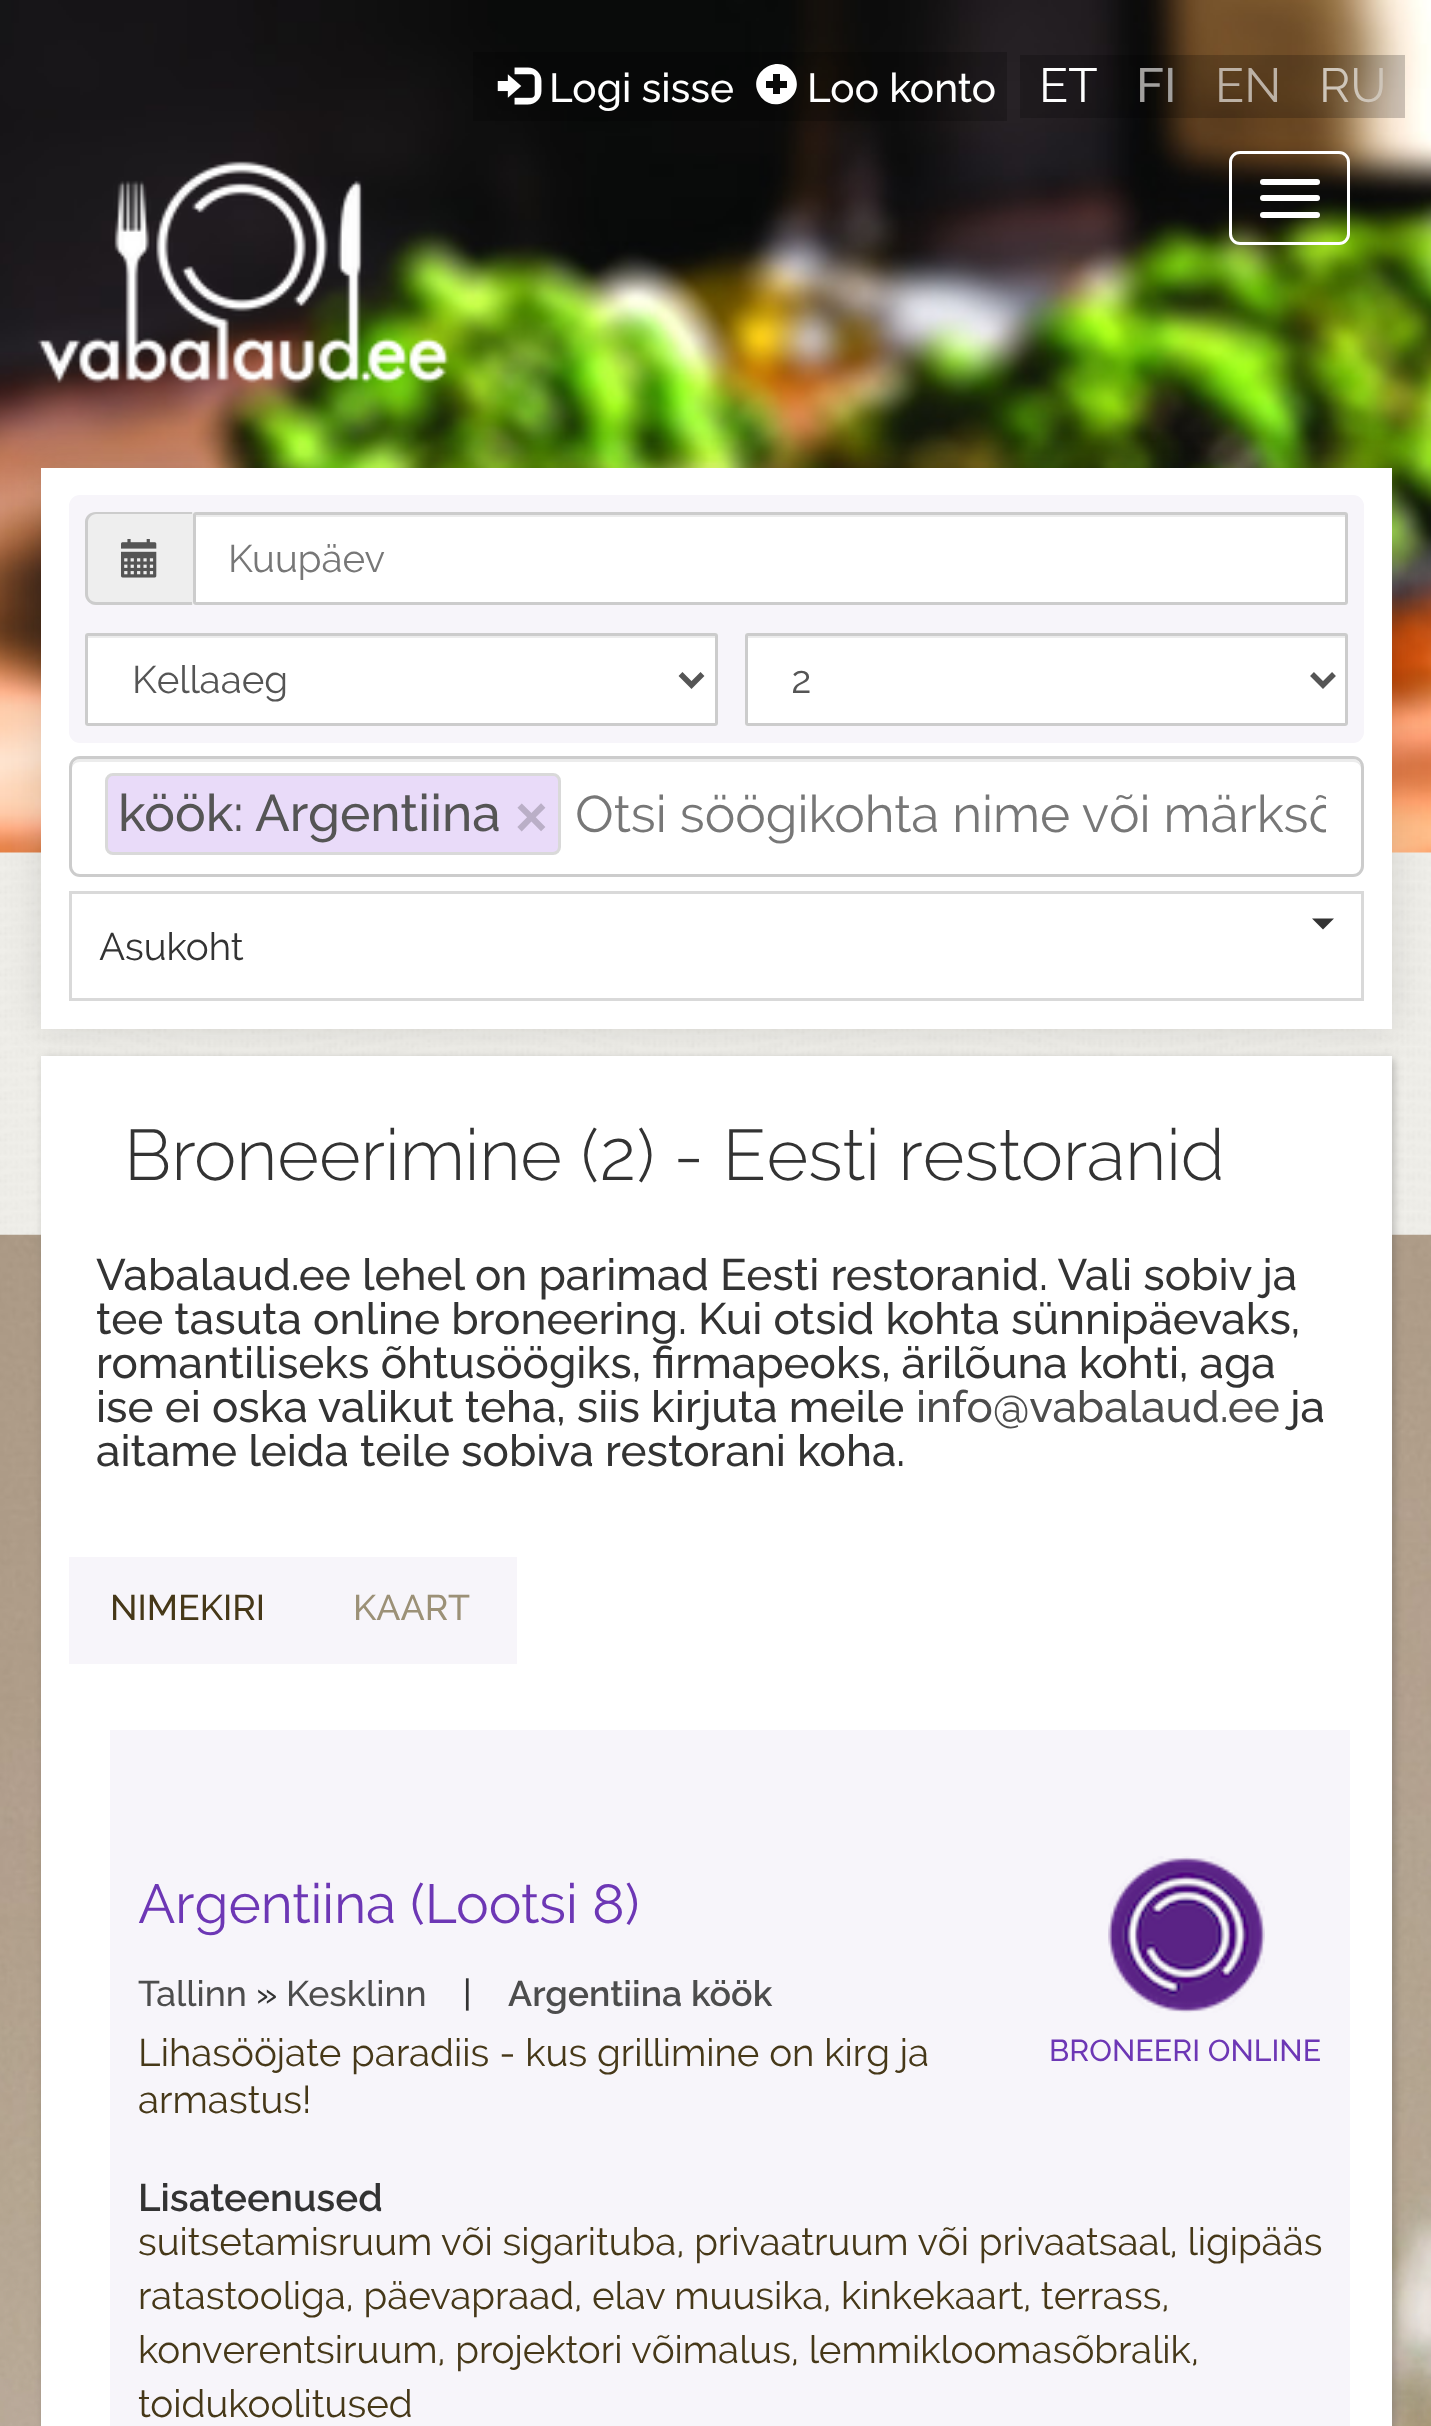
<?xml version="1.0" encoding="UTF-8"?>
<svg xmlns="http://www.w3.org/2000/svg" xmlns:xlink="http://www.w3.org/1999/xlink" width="1431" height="2426">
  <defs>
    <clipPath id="clip1"><rect x="228" y="536" width="1084" height="44" /></clipPath>
    <clipPath id="clip2"><rect x="575" y="787" width="751" height="60" /></clipPath>
  </defs>
  <rect width="100%" height="100%" fill="#ffffff" />
  <image x="0" y="852" width="1431" height="383" xlink:href="image1.png" />
  <image x="0" y="0" width="1431" height="853" xlink:href="image2.png" />
  <rect x="473" y="52" width="534" height="69" fill="#000000" fill-opacity="0.2" />
  <image x="497" y="67" width="45" height="38" xlink:href="image3.png" />
  <path d="M 759 94 c -13 -22 22 -43 35 -20 c 13 23 -22 43 -35 20 z m 7 -6 h 7 v 6 h 7 v -6 h 7 v -7 h -7 v -7 h -7 v 7 h -7 z" fill="#ffffff" />
  <rect x="1020" y="55" width="385" height="63" fill="#000000" fill-opacity="0.2" />
  <image x="37" y="161" width="412" height="222" xlink:href="image4.png" />
  <rect x="1230.5" y="152.5" width="118" height="91" rx="9.5" fill="none" stroke="#ffffff" stroke-width="3" />
  <rect x="1260" y="179" width="60" height="6" rx="3" fill="#ffffff" />
  <rect x="1260" y="195" width="60" height="6" rx="3" fill="#ffffff" />
  <rect x="1260" y="212" width="60" height="6" rx="3" fill="#ffffff" />
  <rect x="41" y="468" width="1351" height="561" fill="#323232" fill-opacity="0.14" filter="blur(18px)" />
  <rect x="41" y="468" width="1351" height="561" fill="#ffffff" />
  <rect x="69" y="495" width="1295" height="248" rx="11" fill="#f7f5fa" />
  <path d="M 96 512 h 97 v 93 h -97 c -6 0 -11 -5 -11 -11 v -71 c 0 -6 5 -11 11 -11 z" fill="#eeeeee" />
  <path d="M 96 512 h 96 v 93 h -96 c -6 0 -11 -5 -11 -11 v -72 c 0 -6 5 -10 11 -10 z m 0 2 h 96 v 88 h -96 c -4 0 -8 -3 -8 -8 v -72 c 0 -4 4 -8 8 -8 z" fill="#cccccc" fill-rule="evenodd" />
  <image x="121" y="539" width="36" height="39" xlink:href="image5.png" />
  <rect x="193" y="512" width="1155" height="93" rx="3" fill="#ffffff" />
  <rect x="195" y="515" width="1150" height="2" fill="#ececec" />
  <rect x="194.5" y="513.5" width="1152" height="90" rx="1.5" fill="none" stroke="#cccccc" stroke-width="3" />
  <rect x="85" y="633" width="633" height="93" rx="3" fill="#ffffff" />
  <rect x="88" y="636" width="627" height="2" fill="#ececec" />
  <rect x="86.5" y="634.5" width="630" height="90" rx="1.5" fill="none" stroke="#cccccc" stroke-width="3" />
  <path d="M 680.5 674 l 11 11 l 11 -11" fill="none" stroke="#555555" stroke-width="5.5" />
  <rect x="745" y="633" width="603" height="93" rx="3" fill="#ffffff" />
  <rect x="748" y="636" width="597" height="2" fill="#ececec" />
  <rect x="746.5" y="634.5" width="600" height="90" rx="1.5" fill="none" stroke="#cccccc" stroke-width="3" />
  <path d="M 1312 674 l 11 11 l 11 -11" fill="none" stroke="#555555" stroke-width="5.5" />
  <path d="M 80 762 h 1273 c 5 0 8 3 8 8 v -3 c 0 -4 -4 -8 -8 -8 h -1273 c -4 0 -8 4 -8 8 v 3 c 0 -5 3 -8 8 -8 z" fill="#ececec" />
  <rect x="70.5" y="757.5" width="1292" height="118" rx="9.5" fill="none" stroke="#cccccc" stroke-width="3" />
  <rect x="106.5" y="774.5" width="453" height="79" rx="6.5" fill="#e9dbf9" stroke="#d9d9d9" stroke-width="3" />
  <rect x="70.5" y="892.5" width="1292" height="107" fill="none" stroke="#d9d9d9" stroke-width="3" />
  <path d="M 1312 918.5 h 22 l -11 11 z" fill="#333333" />
  <image x="0" y="1234" width="1431" height="1192" xlink:href="image7.png" />
  <rect x="44" y="1059" width="1350" height="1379" fill="#323232" fill-opacity="0.3" filter="blur(4px)" />
  <rect x="41" y="1056" width="1351" height="1370" fill="#ffffff" />
  <rect x="69" y="1557" width="448" height="107" fill="#f7f5fa" />
  <rect x="110" y="1730" width="1240" height="696" fill="#f7f5fa" />
  <image x="1108" y="1856" width="157" height="157" xlink:href="image6.png" />
  <text x="549" y="102" style="font-family: Raleway; font-size: 40.5px; font-weight: 500; fill: #ffffff">Logi sisse</text>
  <text x="807" y="102" style="font-family: Raleway; font-size: 40.5px; font-weight: 500; fill: #ffffff">Loo konto</text>
  <text x="1039" y="102" style="font-family: Raleway; font-size: 48px; fill: #ffffff">ET</text>
  <text x="1136" y="102" style="font-family: Raleway; font-size: 48px; font-weight: 500; fill: #a2a09e">FI</text>
  <text x="1215" y="102" style="font-family: Raleway; font-size: 48px; fill: #bcb1a5">EN</text>
  <text x="1319" y="102" style="font-family: Raleway; font-size: 48px; fill: #cec5b9">RU</text>
  <g clip-path="url(#clip1)">
    <text x="228" y="572" style="font-family: 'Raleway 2'; font-size: 38.5px; fill: #777777">Kuupäev</text>
  </g>
  <text x="132" y="693" style="font-family: 'Raleway 2'; font-size: 38.5px; fill: #555555">Kellaaeg</text>
  <text x="791" y="693" style="font-family: 'Raleway 2'; font-size: 38.5px; fill: #555555">2</text>
  <text x="118" y="831" style="font-family: Raleway; font-size: 51.3px; font-weight: 500; fill: #555555">köök: Argentiina</text>
  <text x="515" y="836" style="font-family: Liberation Sans; font-size: 56px; font-weight: bold; fill: #baafc7">×</text>
  <g clip-path="url(#clip2)">
    <text x="575" y="832" style="font-family: 'Raleway 2'; font-size: 51.3px; fill: #777777">Otsi söögikohta nime või märksõ</text>
  </g>
  <text x="99" y="960" style="font-family: 'Raleway 2'; font-size: 38.5px; fill: #333333">Asukoht</text>
  <text x="124" y="1180" style="font-family: Raleway; font-size: 71.5px; font-weight: 300; fill: #333333">Broneerimine (2) - Eesti restoranid</text>
  <text x="96" y="1290" style="font-family: Raleway; font-size: 44px; font-weight: 500; fill: #333333">Vabalaud.ee lehel on parimad Eesti restoranid. Vali sobiv ja</text>
  <text x="96" y="1334" style="font-family: Raleway; font-size: 44px; font-weight: 500; fill: #333333">tee tasuta online broneering. Kui otsid kohta sünnipäevaks,</text>
  <text x="96" y="1378" style="font-family: Raleway; font-size: 44px; font-weight: 500; fill: #333333">romantiliseks õhtusöögiks, firmapeoks, ärilõuna kohti, aga</text>
  <text x="96" y="1422" style="font-family: Raleway; font-size: 44px; font-weight: 500; fill: #333333">ise ei oska valikut teha, siis kirjuta meile</text>
  <text x="916" y="1422" style="font-family: Raleway; font-size: 44px; font-weight: 500; fill: #4d4d4d">info@vabalaud.ee</text>
  <text x="1290" y="1422" style="font-family: Raleway; font-size: 44px; font-weight: 500; fill: #333333">ja</text>
  <text x="96" y="1466" style="font-family: Raleway; font-size: 44px; font-weight: 500; fill: #333333">aitame leida teile sobiva restorani koha.</text>
  <text x="110" y="1620" style="font-family: Raleway; font-size: 35.75px; font-weight: 500; fill: #463818">NIMEKIRI</text>
  <text x="353" y="1620" style="font-family: Raleway; font-size: 35.75px; font-weight: 500; fill: #9c9177">KAART</text>
  <text x="138" y="1923" style="font-family: 'Raleway 2'; font-size: 55px; fill: #6d37b5">Argentiina (Lootsi 8)</text>
  <text x="138" y="2006" style="font-family: Raleway; font-size: 35.75px; font-weight: 500; fill: #4d4d4d">Tallinn</text>
  <text x="256" y="2006" style="font-family: Raleway; font-size: 35.75px; font-weight: 500; fill: #333333">»</text>
  <text x="286" y="2006" style="font-family: Raleway; font-size: 35.75px; font-weight: 500; fill: #4d4d4d">Kesklinn</text>
  <text x="463" y="2006" style="font-family: Raleway; font-size: 35.75px; font-weight: 500; fill: #333333">|</text>
  <text x="508" y="2006" style="font-family: Raleway; font-size: 35.75px; font-weight: 600; fill: #4d4d4d">Argentiina köök</text>
  <text x="138" y="2066" style="font-family: 'Raleway 2'; font-size: 38.5px; fill: #463818">Lihasööjate paradiis - kus grillimine on kirg ja</text>
  <text x="138" y="2113" style="font-family: 'Raleway 2'; font-size: 38.5px; fill: #463818">armastus!</text>
  <text x="1049" y="2061" style="font-family: 'Raleway 2'; font-size: 30.25px; font-weight: 500; fill: #6d37b5">BRONEERI ONLINE</text>
  <text x="138" y="2211" style="font-family: Raleway; font-size: 38.5px; font-weight: 600; fill: #333333">Lisateenused</text>
  <text x="138" y="2255" style="font-family: 'Raleway 2'; font-size: 38.5px; fill: #463818">suitsetamisruum või sigarituba, privaatruum või privaatsaal, ligipääs</text>
  <text x="138" y="2309" style="font-family: 'Raleway 2'; font-size: 38.5px; fill: #463818">ratastooliga, päevapraad, elav muusika, kinkekaart, terrass,</text>
  <text x="138" y="2363" style="font-family: 'Raleway 2'; font-size: 38.5px; fill: #463818">konverentsiruum, projektori võimalus, lemmikloomasõbralik,</text>
  <text x="138" y="2417" style="font-family: 'Raleway 2'; font-size: 38.5px; fill: #463818">toidukoolitused</text>
</svg>
